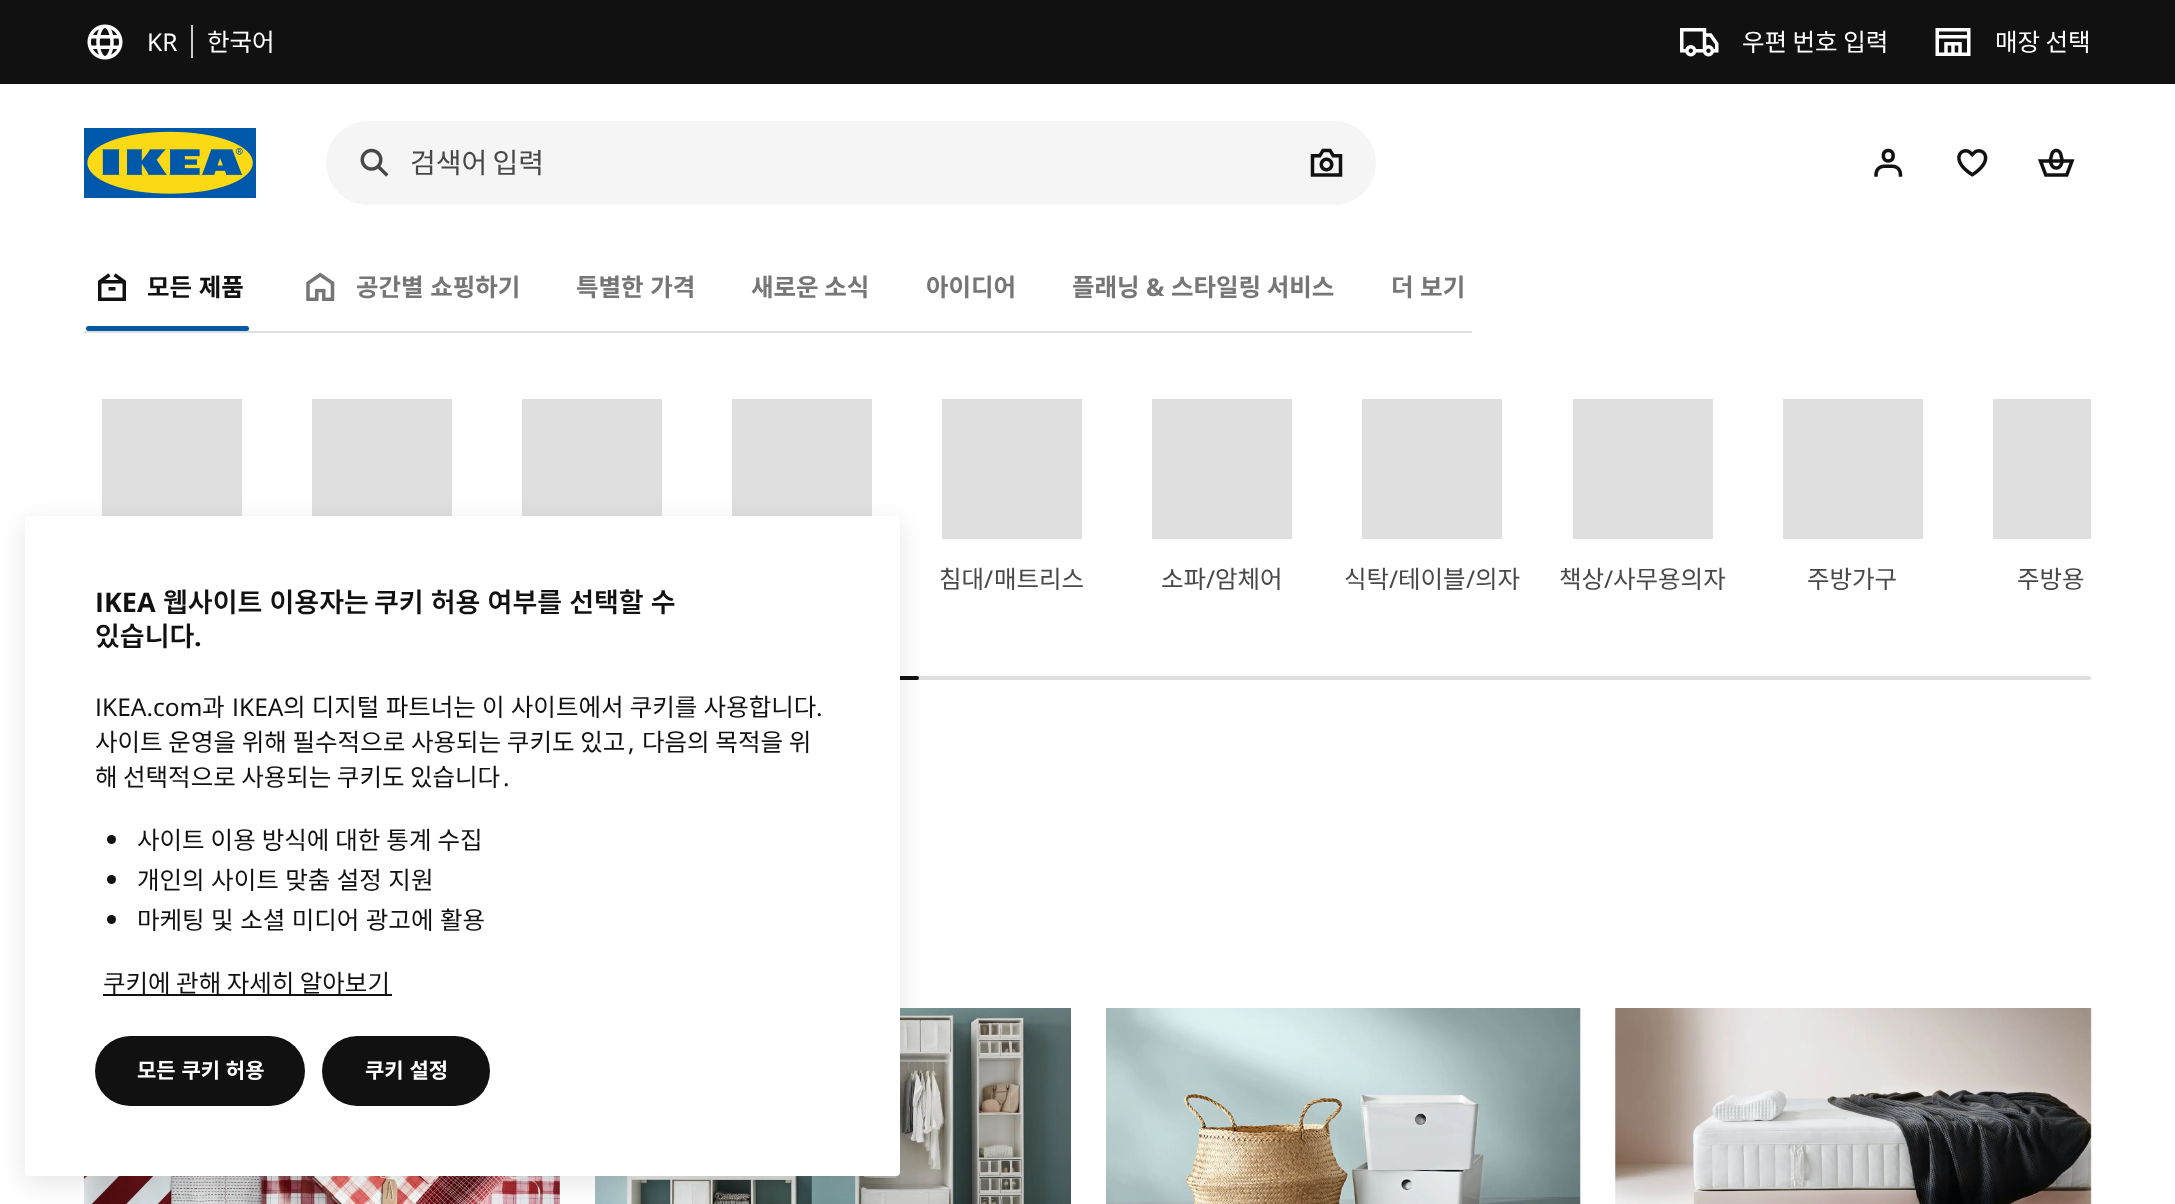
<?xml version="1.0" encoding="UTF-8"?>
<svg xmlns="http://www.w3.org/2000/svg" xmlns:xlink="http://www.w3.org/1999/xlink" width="2175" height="1204">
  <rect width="100%" height="100%" fill="#ffffff" />
  <rect width="2175" height="84" fill="#111111" />
  <image x="87" y="24" width="36" height="36" xlink:href="image1.png" />
  <rect x="191" y="25" width="2" height="33" fill="#cccccc" />
  <image x="1680" y="28" width="39" height="29" xlink:href="image2.png" />
  <image x="1935" y="28" width="36" height="28" xlink:href="image3.png" />
  <image x="84" y="128" width="172" height="70" xlink:href="image4.png" />
  <rect x="326" y="121" width="1050" height="84" rx="42" fill="#f5f5f5" />
  <image x="360" y="148" width="29" height="29" xlink:href="image5.png" />
  <image x="1310" y="148" width="33" height="29" xlink:href="image6.png" />
  <image x="1874" y="148" width="29" height="29" xlink:href="image7.png" />
  <image x="1957" y="149" width="31" height="28" xlink:href="image8.png" />
  <image x="2038" y="148" width="37" height="29" xlink:href="image9.png" />
  <image x="98" y="273" width="28" height="28" xlink:href="image10.png" />
  <image x="306" y="272" width="29" height="29" xlink:href="image11.png" />
  <rect x="86" y="326" width="163" height="5" rx="2.5" fill="#0058a3" />
  <rect x="88" y="326" width="159" height="5" fill="#0058a3" />
  <rect x="84" y="331" width="1388" height="2" fill="#dfdfdf" />
  <rect x="102" y="399" width="140" height="117" fill="#dfdfdf" />
  <rect x="312" y="399" width="140" height="117" fill="#dfdfdf" />
  <rect x="522" y="399" width="140" height="117" fill="#dfdfdf" />
  <rect x="732" y="399" width="140" height="117" fill="#dfdfdf" />
  <rect x="942" y="399" width="140" height="140" fill="#dfdfdf" />
  <rect x="1152" y="399" width="140" height="140" fill="#dfdfdf" />
  <rect x="1362" y="399" width="140" height="140" fill="#dfdfdf" />
  <rect x="1573" y="399" width="140" height="140" fill="#dfdfdf" />
  <rect x="1783" y="399" width="140" height="140" fill="#dfdfdf" />
  <rect x="1993" y="399" width="98" height="140" fill="#dfdfdf" />
  <rect x="84" y="676" width="2007" height="4" rx="2" fill="#dfdfdf" />
  <rect x="84" y="676" width="835" height="4" rx="2" fill="#111111" />
  <image x="84" y="1176" width="476" height="28" xlink:href="image12.png" />
  <image x="595" y="1008" width="476" height="196" xlink:href="image13.png" />
  <rect x="25" y="523" width="875" height="660" rx="4" fill="#000000" fill-opacity="0.1" filter="blur(13px)" />
  <rect x="25" y="516" width="875" height="660" rx="4" fill="#ffffff" />
  <circle cx="111.5" cy="839.5" r="4.5" fill="#111111" />
  <circle cx="111.5" cy="879.5" r="4.5" fill="#111111" />
  <circle cx="111.5" cy="919.5" r="4.5" fill="#111111" />
  <rect x="103" y="994" width="289" height="2" fill="#111111" />
  <rect x="95" y="1036" width="210" height="70" rx="35" fill="#111111" />
  <rect x="322" y="1036" width="168" height="70" rx="35" fill="#111111" />
  <image x="1106" y="1008" width="475" height="196" xlink:href="image14.png" />
  <image x="1615" y="1008" width="477" height="196" xlink:href="image15.png" />
  <text x="147" y="51" style="font-family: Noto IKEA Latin; font-size: 24.5px; fill: #ffffff">KR</text>
  <text x="207" y="51" style="font-family: Noto Sans KR; font-size: 24.5px; fill: #ffffff">한국어</text>
  <text x="1742" y="51" style="font-family: Noto Sans KR; font-size: 24.5px; fill: #ffffff">우편 번호 입력</text>
  <text x="1995" y="51" style="font-family: Noto Sans KR; font-size: 24.5px; fill: #ffffff">매장 선택</text>
  <text x="410" y="173" word-spacing="-1" style="font-family: Noto Sans KR; font-size: 28px; fill: #484848">검색어 입력</text>
  <text x="147" y="296" word-spacing="1" style="font-family: Noto Sans KR; font-size: 24.5px; font-weight: bold; fill: #111111">모든 제품</text>
  <text x="356" y="296" word-spacing="1" style="font-family: Noto Sans KR; font-size: 24.5px; font-weight: bold; fill: #767676">공간별 쇼핑하기</text>
  <text x="576" y="296" word-spacing="1" style="font-family: Noto Sans KR; font-size: 24.5px; font-weight: bold; fill: #767676">특별한 가격</text>
  <text x="751" y="296" style="font-family: Noto Sans KR; font-size: 24.5px; font-weight: bold; fill: #767676">새로운 소식</text>
  <text x="926" y="296" style="font-family: Noto Sans KR; font-size: 24.5px; font-weight: bold; fill: #767676">아이디어</text>
  <text x="1072" y="296" style="font-family: Noto Sans KR; font-size: 24.5px; font-weight: bold; fill: #767676">플래닝</text>
  <text x="1146" y="296" style="font-family: Noto IKEA Latin; font-size: 24.5px; font-weight: bold; fill: #767676">&amp;</text>
  <text x="1171" y="296" style="font-family: Noto Sans KR; font-size: 24.5px; font-weight: bold; fill: #767676">스타일링 서비스</text>
  <text x="1391" y="296" word-spacing="1" style="font-family: Noto Sans KR; font-size: 24.5px; font-weight: bold; fill: #767676">더 보기</text>
  <text x="939" y="588" style="font-family: Noto Sans KR; font-size: 24.5px; fill: #484848">침대</text>
  <text x="984" y="588" style="font-family: Noto IKEA Latin; font-size: 24.5px; fill: #484848">/</text>
  <text x="994" y="588" style="font-family: Noto Sans KR; font-size: 24.5px; fill: #484848">매트리스</text>
  <text x="1161" y="588" style="font-family: Noto Sans KR; font-size: 24.5px; fill: #484848">소파</text>
  <text x="1206" y="588" style="font-family: Noto IKEA Latin; font-size: 24.5px; fill: #484848">/</text>
  <text x="1215" y="588" style="font-family: Noto Sans KR; font-size: 24.5px; fill: #484848">암체어</text>
  <text x="1344" y="588" style="font-family: Noto Sans KR; font-size: 24.5px; fill: #484848">식탁</text>
  <text x="1389" y="588" style="font-family: Noto IKEA Latin; font-size: 24.5px; fill: #484848">/</text>
  <text x="1398" y="588" style="font-family: Noto Sans KR; font-size: 24.5px; fill: #484848">테이블</text>
  <text x="1466" y="588" style="font-family: Noto IKEA Latin; font-size: 24.5px; fill: #484848">/</text>
  <text x="1475" y="588" style="font-family: Noto Sans KR; font-size: 24.5px; fill: #484848">의자</text>
  <text x="1559" y="588" style="font-family: Noto Sans KR; font-size: 24.5px; fill: #484848">책상</text>
  <text x="1604" y="588" style="font-family: Noto IKEA Latin; font-size: 24.5px; fill: #484848">/</text>
  <text x="1613" y="588" style="font-family: Noto Sans KR; font-size: 24.5px; fill: #484848">사무용의자</text>
  <text x="1807" y="588" style="font-family: Noto Sans KR; font-size: 24.5px; fill: #484848">주방가구</text>
  <text x="2017" y="588" style="font-family: Noto Sans KR; font-size: 24.5px; fill: #484848">주방용</text>
  <text x="95" y="612" style="font-family: Noto IKEA Latin; font-size: 27px; font-weight: bold; fill: #111111">IKEA</text>
  <text x="163" y="612" word-spacing="1" style="font-family: Noto Sans KR; font-size: 27px; font-weight: 600; fill: #111111">웹사이트 이용자는</text>
  <text x="374" y="612" word-spacing="1" style="font-family: Noto Sans KR; font-size: 27px; font-weight: 600; fill: #111111">쿠키 허용 여부를 선택할 수</text>
  <text x="95" y="646" style="font-family: Noto Sans KR; font-size: 27px; font-weight: 600; fill: #111111">있습니다</text>
  <text x="194" y="646" style="font-family: Noto IKEA Latin; font-size: 27px; font-weight: bold; fill: #111111">.</text>
  <text x="95" y="716" style="font-family: Noto IKEA Latin; font-size: 24.5px; fill: #111111">IKEA.com</text>
  <text x="202" y="716" style="font-family: Noto Sans KR; font-size: 24.5px; fill: #111111">과</text>
  <text x="232" y="716" style="font-family: Noto IKEA Latin; font-size: 24.5px; fill: #111111">IKEA</text>
  <text x="283" y="716" word-spacing="0.75" style="font-family: Noto Sans KR; font-size: 24.5px; fill: #111111">의 디지털 파트너는 이 사이트에서 쿠키를 사용합니다</text>
  <text x="816" y="716" style="font-family: Noto IKEA Latin; font-size: 24.5px; fill: #111111">.</text>
  <text x="95" y="751" word-spacing="0.25" style="font-family: Noto Sans KR; font-size: 24.5px; fill: #111111">사이트 운영을 위해 필수적으로 사용되는 쿠키도 있고</text>
  <text x="628" y="751" style="font-family: Noto IKEA Latin; font-size: 24.5px; fill: #111111">,</text>
  <text x="642" y="751" word-spacing="0.25" style="font-family: Noto Sans KR; font-size: 24.5px; fill: #111111">다음의 목적을 위</text>
  <text x="95" y="786" style="font-family: Noto Sans KR; font-size: 24.5px; fill: #111111">해 선택적으로 사용되는 쿠키도 있습니다</text>
  <text x="503" y="786" style="font-family: Noto IKEA Latin; font-size: 24.5px; fill: #111111">.</text>
  <text x="137" y="849" word-spacing="0.5" style="font-family: Noto Sans KR; font-size: 24.5px; fill: #111111">사이트 이용 방식에 대한 통계 수집</text>
  <text x="137" y="889" word-spacing="1" style="font-family: Noto Sans KR; font-size: 24.5px; fill: #111111">개인의 사이트 맞춤 설정 지원</text>
  <text x="137" y="929" word-spacing="1" style="font-family: Noto Sans KR; font-size: 24.5px; fill: #111111">마케팅 및 소셜 미디어 광고에 활용</text>
  <text x="103" y="992" style="font-family: Noto Sans KR; font-size: 24.5px; fill: #111111">쿠키에 관해 자세히 알아보기</text>
  <text x="137" y="1078" word-spacing="1" style="font-family: Noto Sans KR; font-size: 21px; font-weight: bold; fill: #ffffff">모든 쿠키 허용</text>
  <text x="365" y="1078" word-spacing="1" style="font-family: Noto Sans KR; font-size: 21px; font-weight: bold; fill: #ffffff">쿠키 설정</text>
</svg>
